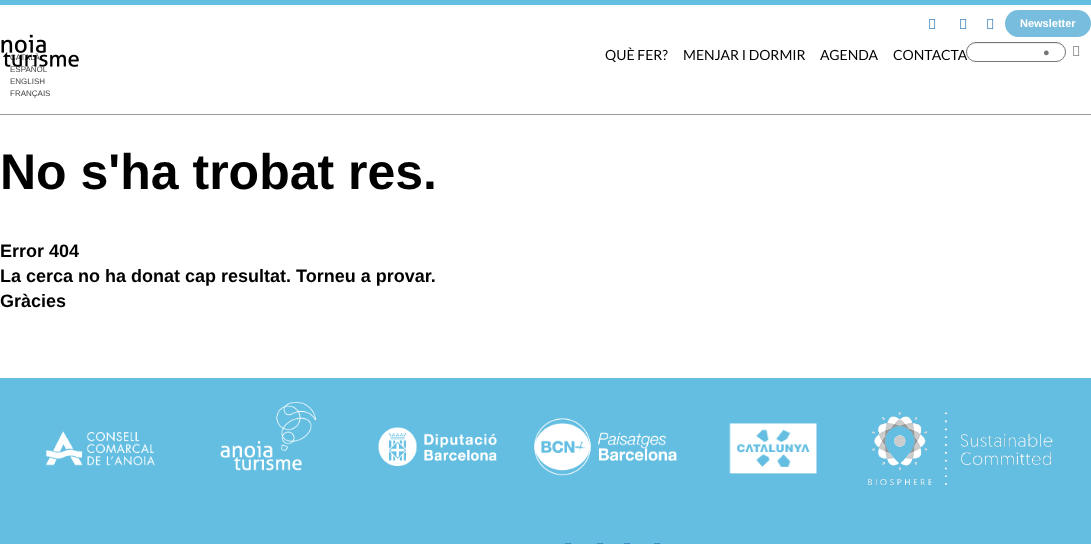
<?xml version="1.0" encoding="UTF-8"?>
<svg xmlns="http://www.w3.org/2000/svg" xmlns:xlink="http://www.w3.org/1999/xlink" width="1091" height="544">
  <rect width="100%" height="100%" fill="#ffffff" />
  <rect width="1091" height="5" fill="#63bee1" />
  <rect y="114" width="1091" height="1" fill="#999999" />
  <image x="929" y="19" width="7" height="10" xlink:href="image1.png" />
  <image x="960" y="19" width="7" height="10" xlink:href="image1.png" />
  <image x="987" y="19" width="7" height="10" xlink:href="image1.png" />
  <rect x="1005" y="10" width="86" height="27" rx="13.5" fill="#78bddd" />
  <image x="1073" y="46" width="7" height="10" xlink:href="image3.png" />
  <rect y="378" width="1091" height="166" fill="#63bee1" />
  <image x="45" y="431" width="110" height="35" xlink:href="image4.png" />
  <image x="220" y="402" width="97" height="69" xlink:href="image5.png" />
  <image x="378" y="427" width="119" height="39" xlink:href="image6.png" />
  <image x="534" y="418" width="143" height="58" xlink:href="image7.png" />
  <image x="729" y="423" width="88" height="51" xlink:href="image8.png" />
  <image x="868" y="411" width="185" height="75" xlink:href="image9.png" />
  <image x="565" y="543" width="7" height="1" xlink:href="image10.png" />
  <image x="597" y="543" width="7" height="1" xlink:href="image10.png" />
  <image x="624" y="543" width="7" height="1" xlink:href="image10.png" />
  <image x="654" y="543" width="7" height="1" xlink:href="image10.png" />
  <text x="1020" y="27" style="font-family: Liberation Sans; font-size: 11px; font-weight: bold; fill: #ffffff">Newsletter</text>
  <text x="605" y="60" style="font-family: Lato; font-size: 14px; fill: #000000">QUÈ FER?</text>
  <text x="683" y="60" style="font-family: Lato; font-size: 14px; fill: #000000">MENJAR I DORMIR</text>
  <text x="820" y="60" style="font-family: Lato; font-size: 14px; fill: #000000">AGENDA</text>
  <text x="893" y="60" style="font-family: Lato; font-size: 14px; fill: #000000">CONTACTA</text>
  <path d="M 976 44 h 80 c 5 0 9 4 9 8 c 1 -12 -15 -9 -22 -9 h -54 c -7 0 -23 -3 -22 9 c 0 -4 4 -8 9 -8 z" fill="#ececec" />
  <rect x="966.5" y="42.5" width="99" height="19" rx="9.5" fill="none" stroke="#777777" />
  <text x="1043" y="56" style="font-family: Liberation Sans; font-size: 11px; fill: #757575">●</text>
  <text x="10" y="60" style="font-family: Liberation Sans; font-size: 8px; fill: #444444">CATALÀ</text>
  <text x="10" y="72" style="font-family: Liberation Sans; font-size: 8px; fill: #444444">ESPAÑOL</text>
  <image x="1" y="34" width="78" height="33" xlink:href="image2.png" />
  <text x="10" y="84" style="font-family: Liberation Sans; font-size: 8px; fill: #444444">ENGLISH</text>
  <text x="10" y="96" style="font-family: Liberation Sans; font-size: 8px; fill: #444444">FRANÇAIS</text>
  <text x="0" y="189" style="font-family: Liberation Sans; font-size: 50px; font-weight: bold; fill: #000000">No s'ha trobat res.</text>
  <text x="0" y="257" style="font-family: Liberation Sans; font-size: 18px; font-weight: bold; fill: #000000">Error 404</text>
  <text x="0" y="282" style="font-family: Liberation Sans; font-size: 18px; font-weight: bold; fill: #000000">La cerca no ha donat cap resultat. Torneu a provar.</text>
  <text x="0" y="307" style="font-family: Liberation Sans; font-size: 18px; font-weight: bold; fill: #000000">Gràcies</text>
</svg>
